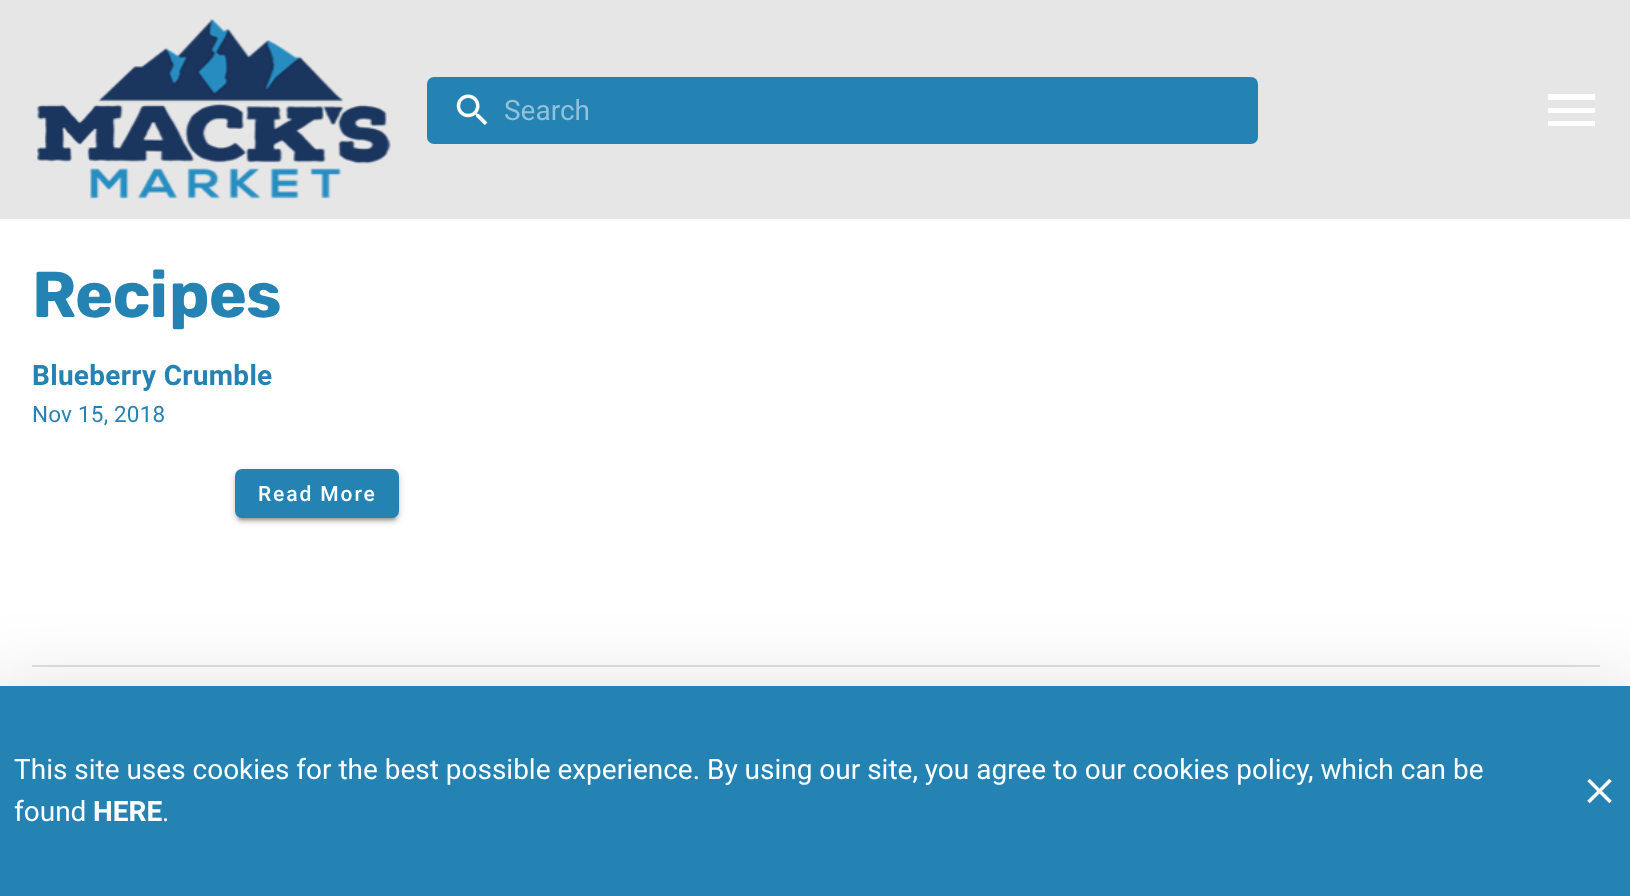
<?xml version="1.0" encoding="UTF-8"?>
<svg xmlns="http://www.w3.org/2000/svg" xmlns:xlink="http://www.w3.org/1999/xlink" width="1630" height="896">
  <rect width="100%" height="100%" fill="#e6e6e6" />
  <image x="36" y="19" width="355" height="180" xlink:href="image1.png" />
  <rect x="427" y="77" width="831" height="67" rx="7" fill="#2483b3" />
  <image x="456" y="94" width="32" height="31" xlink:href="image2.png" />
  <path d="M 1548 94 h 47 v 6 h -47 v -6 m 0 14 h 47 v 5 h -47 v -5 m 0 13 h 47 v 5 h -47 z" fill="#ffffff" />
  <rect y="219" width="1630" height="467" fill="#ffffff" />
  <rect x="235" y="471" width="164" height="49" rx="7" fill="#000000" fill-opacity="0.12" filter="blur(4.5px)" />
  <rect x="235" y="473" width="164" height="49" rx="7" fill="#000000" fill-opacity="0.14" filter="blur(2px)" />
  <rect x="238" y="478" width="158" height="42" rx="4" fill="#000000" fill-opacity="0.2" filter="blur(1px)" />
  <rect x="235" y="469" width="164" height="49" rx="7" fill="#2483b3" />
  <rect x="32" y="665" width="1568" height="2" fill="#e0e0e0" />
  <rect x="-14" y="688" width="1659" height="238" fill="#000000" fill-opacity="0.12" filter="blur(40px)" />
  <rect y="686" width="1630" height="210" fill="#2483b3" />
  <image x="1587" y="778" width="25" height="26" xlink:href="image3.png" />
  <text x="504" y="120" style="font-family: Roboto; font-size: 28px; fill: #92c1d9">Search</text>
  <text x="32" y="317" style="font-family: Rubik; font-size: 64.5px; font-weight: 300; letter-spacing: -1px; fill: #2483b3">Recipes</text>
  <text x="32" y="385" style="font-family: Roboto; font-size: 28px; font-weight: bold; letter-spacing: 0.3px; fill: #2483b3">Blueberry Crumble</text>
  <text x="32" y="422" style="font-family: Roboto; font-size: 22.5px; letter-spacing: 0.2px; fill: #2483b3">Nov 15, 2018</text>
  <text x="258" y="501" style="font-family: Roboto; font-size: 21px; font-weight: 500; letter-spacing: 1.9px; fill: #ffffff">Read More</text>
  <text x="14" y="779" style="font-family: Roboto; font-size: 28px; fill: #ffffff">This site uses cookies for the best possible experience. By using our site, you agree to our cookies policy, which can be</text>
  <text x="14" y="821" style="font-family: Roboto; font-size: 28px; fill: #ffffff">found</text>
  <text x="93" y="821" style="font-family: Roboto; font-size: 28px; font-weight: bold; fill: #ffffff">HERE</text>
  <text x="162" y="821" style="font-family: Roboto; font-size: 28px; fill: #ffffff">.</text>
</svg>
